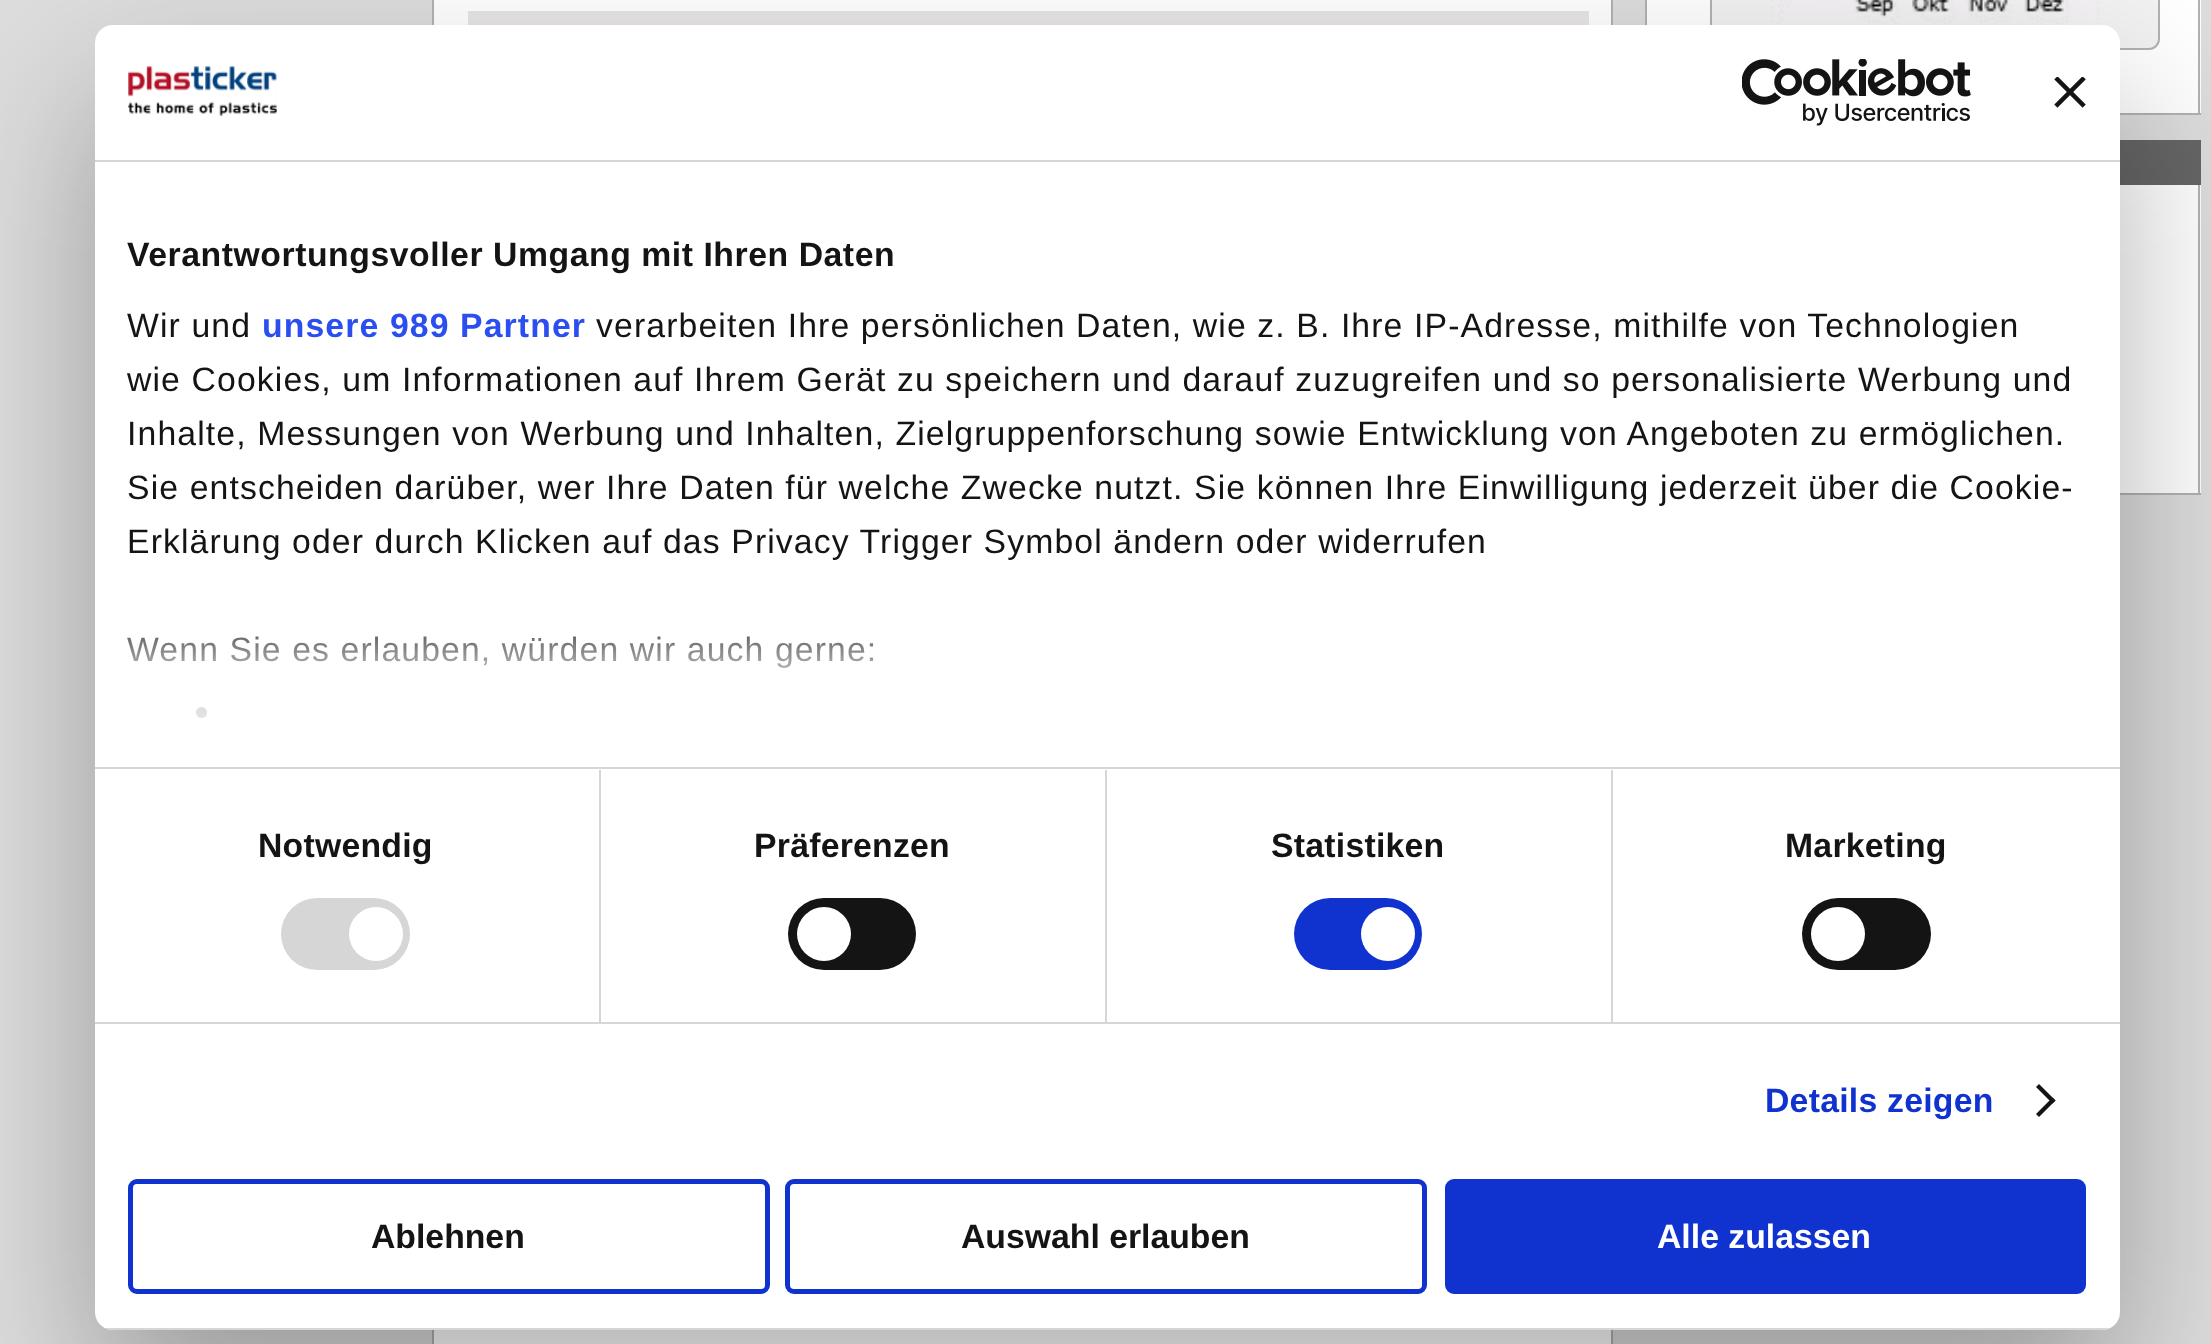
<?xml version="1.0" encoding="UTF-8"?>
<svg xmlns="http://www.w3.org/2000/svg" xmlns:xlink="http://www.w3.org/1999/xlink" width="2211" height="1344">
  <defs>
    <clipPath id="clip1"><rect x="95" y="25" width="2025" height="1305" rx="18" /></clipPath>
    <linearGradient id="g1" gradientUnits="userSpaceOnUse" x1="1092" y1="767" x2="1092" y2="598"><stop offset="0" stop-color="#ffffff" /><stop offset="0.5" stop-color="#ffffff" stop-opacity="0.8" /><stop offset="1" stop-color="#ffffff" stop-opacity="0" /></linearGradient>
  </defs>
  <rect width="100%" height="100%" fill="#dddddd" />
  <rect x="433" y="-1" width="1179" height="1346" fill="#ffffff" stroke="#b2b2b2" stroke-width="2" />
  <rect x="468" y="11" width="1121" height="14" fill="#e7e5e5" />
  <rect x="1647" width="554" height="113" fill="#ffffff" />
  <rect x="2198" width="2" height="115" fill="#b2b2b2" />
  <rect x="2120" y="113" width="81" height="2" fill="#b2b2b2" />
  <rect x="1645" width="2" height="25" fill="#b2b2b2" />
  <rect x="1711" y="-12" width="448" height="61" rx="10" fill="#f2f2f2" stroke="#b2b2b2" stroke-width="2" />
  <image x="1771" y="0" width="328" height="24" xlink:href="image1.png" />
  <rect x="2120" y="140" width="81" height="45" fill="#666666" />
  <rect x="2120" y="185" width="81" height="308" fill="#ffffff" />
  <rect x="2198" y="185" width="2" height="310" fill="#b2b2b2" />
  <rect x="2120" y="493" width="81" height="2" fill="#b2b2b2" />
  <rect x="95" y="97" width="2025" height="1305" rx="18" fill="#000000" fill-opacity="0.3" filter="blur(76.5px)" />
  <rect x="95" y="25" width="2025" height="1305" rx="18" fill="#ffffff" />
  <rect x="95" y="160" width="2025" height="2" fill="#d6d6d6" />
  <image x="128" y="66" width="149" height="51" xlink:href="image2.png" />
  <image x="1742" y="59" width="229" height="67" xlink:href="image3.png" />
  <image x="2054" y="77" width="32" height="31" xlink:href="image4.png" />
  <rect x="95" y="767" width="2025" height="2" fill="#d6d6d6" />
  <circle cx="201.5" cy="712.5" r="5.5" fill="#141414" />
  <rect x="95" y="1022" width="2025" height="2" fill="#d6d6d6" />
  <rect x="599" y="770" width="2" height="252" fill="#d6d6d6" />
  <rect x="281" y="898" width="129" height="72" rx="36" fill="#d6d6d6" />
  <circle cx="376" cy="934" r="27" fill="#ffffff" />
  <rect x="1105" y="770" width="2" height="252" fill="#d6d6d6" />
  <rect x="788" y="898" width="128" height="72" rx="36" fill="#141414" />
  <circle cx="824" cy="934" r="27" fill="#ffffff" />
  <rect x="1611" y="770" width="2" height="252" fill="#d6d6d6" />
  <rect x="1294" y="898" width="128" height="72" rx="36" fill="#1032cf" />
  <circle cx="1388" cy="934" r="27" fill="#ffffff" />
  <rect x="1802" y="898" width="129" height="72" rx="36" fill="#141414" />
  <circle cx="1838" cy="934" r="27" fill="#ffffff" />
  <path d="M 2039 1084 l 16.5 16.5 l -3 3 l -16.5 -16.5 z" fill="#141414" />
  <path d="M 2052.5 1097.5 l 3 3 l -16.5 16.5 l -3 -3 z" fill="#141414" />
  <g clip-path="url(#clip1)">
    <rect x="105" y="1328" width="2005" height="2" fill="#d6d6d6" />
  </g>
  <rect x="130.5" y="1181.5" width="637" height="110" rx="6.5" fill="none" stroke="#1032cf" stroke-width="5" />
  <rect x="787.5" y="1181.5" width="637" height="110" rx="6.5" fill="none" stroke="#1032cf" stroke-width="5" />
  <rect x="1447.5" y="1181.5" width="636" height="110" rx="6.5" fill="#1032cf" stroke="#1032cf" stroke-width="5" />
  <text x="127" y="266" style="font-family: Liberation Sans; font-size: 33.75px; font-weight: bold; letter-spacing: 0.55px; fill: #141414">Verantwortungsvoller Umgang mit Ihren Daten</text>
  <text x="127" y="337" style="font-family: Liberation Sans; font-size: 33.75px; letter-spacing: 1.12px; fill: #141414">Wir und</text>
  <text x="262" y="337" style="font-family: Liberation Sans; font-size: 33.75px; font-weight: bold; letter-spacing: 1.12px; fill: #2a4eef">unsere 989 Partner</text>
  <text x="596" y="337" style="font-family: Liberation Sans; font-size: 33.75px; letter-spacing: 1.12px; fill: #141414">verarbeiten Ihre persönlichen Daten, wie z. B. Ihre IP-Adresse, mithilfe von Technologien</text>
  <text x="127" y="391" style="font-family: Liberation Sans; font-size: 33.75px; letter-spacing: 1.12px; fill: #141414">wie Cookies, um Informationen auf Ihrem Gerät zu speichern und darauf zuzugreifen und so personalisierte Werbung und</text>
  <text x="127" y="445" style="font-family: Liberation Sans; font-size: 33.75px; letter-spacing: 1.12px; fill: #141414">Inhalte, Messungen von Werbung und Inhalten, Zielgruppenforschung sowie Entwicklung von Angeboten zu ermöglichen.</text>
  <text x="127" y="499" style="font-family: Liberation Sans; font-size: 33.75px; letter-spacing: 1.12px; fill: #141414">Sie entscheiden darüber, wer Ihre Daten für welche Zwecke nutzt. Sie können Ihre Einwilligung jederzeit über die Cookie-</text>
  <text x="127" y="553" style="font-family: Liberation Sans; font-size: 33.75px; letter-spacing: 1.12px; fill: #141414">Erklärung oder durch Klicken auf das Privacy Trigger Symbol ändern oder widerrufen</text>
  <text x="127" y="661" style="font-family: Liberation Sans; font-size: 33.75px; letter-spacing: 1.12px; fill: #141414">Wenn Sie es erlauben, würden wir auch gerne:</text>
  <rect x="127" y="636" width="747" height="82" fill="url(#g1)" />
  <text x="258" y="857" style="font-family: Liberation Sans; font-size: 33.75px; font-weight: bold; letter-spacing: 0.25px; fill: #141414">Notwendig</text>
  <text x="754" y="857" style="font-family: Liberation Sans; font-size: 33.75px; font-weight: bold; letter-spacing: 0.25px; fill: #141414">Präferenzen</text>
  <text x="1271" y="857" style="font-family: Liberation Sans; font-size: 33.75px; font-weight: bold; letter-spacing: 0.25px; fill: #141414">Statistiken</text>
  <text x="1785" y="857" style="font-family: Liberation Sans; font-size: 33.75px; font-weight: bold; letter-spacing: 0.25px; fill: #141414">Marketing</text>
  <text x="1765" y="1112" style="font-family: Liberation Sans; font-size: 33.75px; font-weight: bold; letter-spacing: 0.25px; fill: #1032cf">Details zeigen</text>
  <text x="371" y="1248" style="font-family: Liberation Sans; font-size: 33.75px; font-weight: bold; fill: #141414">Ablehnen</text>
  <text x="961" y="1248" style="font-family: Liberation Sans; font-size: 33.75px; font-weight: bold; fill: #141414">Auswahl erlauben</text>
  <text x="1657" y="1248" style="font-family: Liberation Sans; font-size: 33.75px; font-weight: bold; fill: #ffffff">Alle zulassen</text>
</svg>
